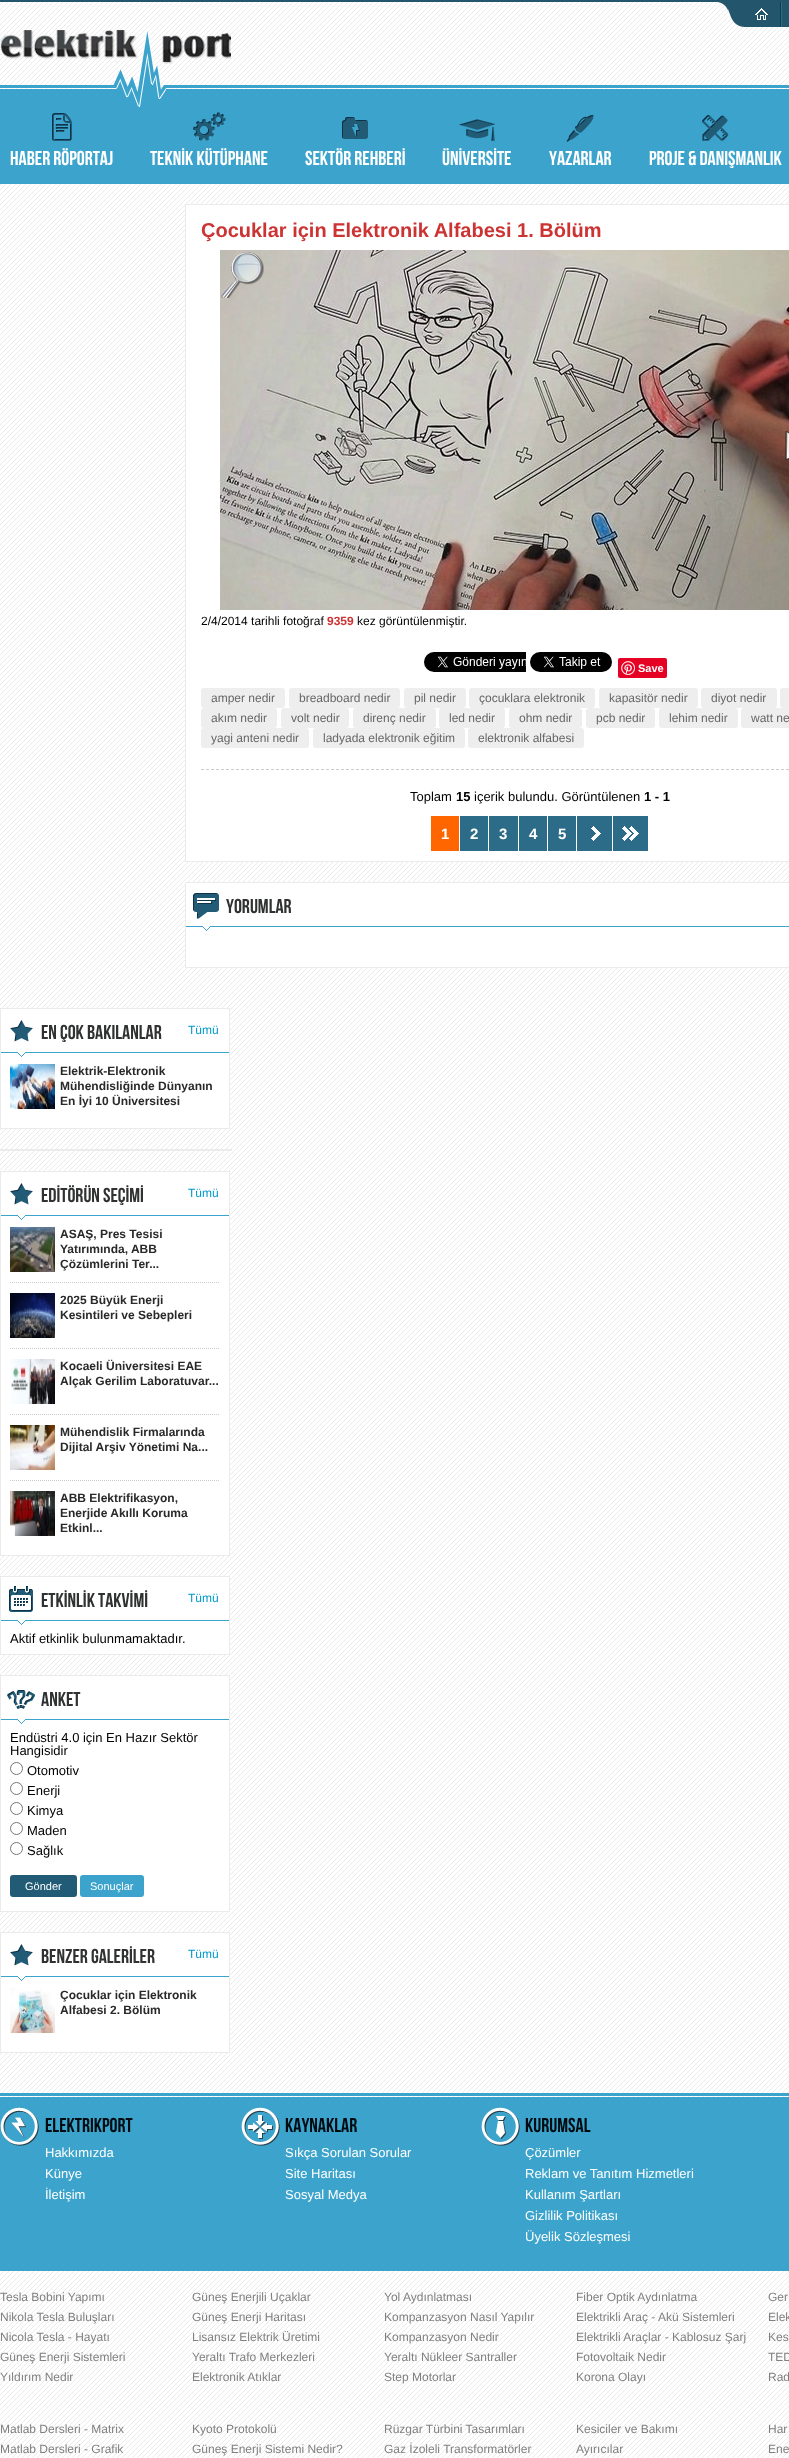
<?xml version="1.0" encoding="UTF-8"?>
<svg xmlns="http://www.w3.org/2000/svg" xmlns:xlink="http://www.w3.org/1999/xlink" width="789" height="2458">
  <rect width="100%" height="100%" fill="#ffffff" />
  <image x="0" y="2" width="789" height="2456" xlink:href="image1.png" />
  <rect width="789" height="2" fill="#23556c" />
  <image x="717" y="2" width="28" height="25" xlink:href="image2.png" />
  <rect x="745" y="2" width="35" height="25" fill="#23556c" />
  <image x="755" y="8" width="13" height="12" xlink:href="image3.png" />
  <rect x="780" y="2" width="1" height="25" fill="#0f3e53" />
  <rect x="782" y="2" width="7" height="25" fill="#23556c" />
  <rect x="781" y="2" width="1" height="25" fill="#2c6c89" />
  <rect y="85" width="789" height="3" fill="#3ca4cc" />
  <image x="0" y="30" width="231" height="34" xlink:href="image4.png" />
  <rect y="89" width="789" height="95" fill="#3ca4cc" />
  <image x="113" y="31" width="53" height="76" xlink:href="image5.png" />
  <image x="52" y="113" width="20" height="28" xlink:href="image6.png" />
  <image x="193" y="112" width="33" height="29" xlink:href="image7.png" />
  <image x="342" y="117" width="26" height="22" xlink:href="image8.png" />
  <image x="459" y="119" width="36" height="22" xlink:href="image9.png" />
  <image x="566" y="115" width="28" height="27" xlink:href="image10.png" />
  <image x="702" y="115" width="27" height="26" xlink:href="image11.png" />
  <rect x="185.5" y="204.5" width="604" height="657" fill="#ffffff" stroke="#ebebeb" />
  <image x="220" y="250" width="569" height="360" xlink:href="image12.png" />
  <image x="221" y="252" width="43" height="46" xlink:href="image13.png" />
  <image x="785" y="431" width="4" height="29" xlink:href="image14.png" />
  <image x="424" y="652" width="102" height="20" xlink:href="image15.png" />
  <image x="530" y="652" width="82" height="20" xlink:href="image16.png" />
  <rect x="618" y="658" width="49" height="20" rx="2" fill="#e60023" />
  <image x="621" y="661" width="14" height="14" xlink:href="image17.png" />
  <rect x="201" y="688" width="84" height="20" rx="3" fill="#eeeeee" />
  <rect x="289" y="688" width="111" height="20" rx="3" fill="#eeeeee" />
  <rect x="404" y="688" width="62" height="20" rx="3" fill="#eeeeee" />
  <rect x="469" y="688" width="126" height="20" rx="3" fill="#eeeeee" />
  <rect x="599" y="688" width="99" height="20" rx="3" fill="#eeeeee" />
  <rect x="701" y="688" width="76" height="20" rx="3" fill="#eeeeee" />
  <rect x="780" y="688" width="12" height="20" rx="3" fill="#eeeeee" />
  <rect x="201" y="708" width="76" height="20" rx="3" fill="#eeeeee" />
  <rect x="281" y="708" width="68" height="20" rx="3" fill="#eeeeee" />
  <rect x="353" y="708" width="83" height="20" rx="3" fill="#eeeeee" />
  <rect x="439" y="708" width="66" height="20" rx="3" fill="#eeeeee" />
  <rect x="509" y="708" width="73" height="20" rx="3" fill="#eeeeee" />
  <rect x="586" y="708" width="69" height="20" rx="3" fill="#eeeeee" />
  <rect x="659" y="708" width="79" height="20" rx="3" fill="#eeeeee" />
  <rect x="741" y="708" width="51" height="20" rx="3" fill="#eeeeee" />
  <rect x="201" y="728" width="108" height="20" rx="3" fill="#eeeeee" />
  <rect x="313" y="728" width="152" height="20" rx="3" fill="#eeeeee" />
  <rect x="468" y="728" width="116" height="20" rx="3" fill="#eeeeee" />
  <path d="M 201 769.5 h 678" fill="none" stroke="#cccccc" stroke-dasharray="3 2" />
  <rect x="431" y="816" width="28" height="35" fill="#ff6600" />
  <rect x="460" y="816" width="28" height="35" fill="#2c6c89" />
  <rect x="489" y="816" width="29" height="35" fill="#2c6c89" />
  <rect x="519" y="816" width="28" height="35" fill="#2c6c89" />
  <rect x="548" y="816" width="28" height="35" fill="#2c6c89" />
  <rect x="577" y="816" width="35" height="35" fill="#2c6c89" />
  <image x="591" y="826" width="10" height="15" xlink:href="image18.png" />
  <rect x="613" y="816" width="35" height="35" fill="#2c6c89" />
  <image x="622" y="826" width="17" height="15" xlink:href="image19.png" />
  <rect x="185.5" y="882.5" width="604" height="85" fill="#ffffff" stroke="#ebebeb" />
  <image x="193" y="893" width="26" height="26" xlink:href="image20.png" />
  <image x="186" y="926" width="603" height="5" xlink:href="image21.png" />
  <rect x="0.5" y="1008.5" width="229" height="120" fill="#ffffff" stroke="#ebebeb" />
  <image x="10" y="1020" width="23" height="22" xlink:href="image22.png" />
  <image x="1" y="1052" width="228" height="5" xlink:href="image23.png" />
  <image x="10" y="1064" width="45" height="45" xlink:href="image24.png" />
  <rect y="1149" width="232" height="2" fill="#ebebeb" />
  <rect x="0.5" y="1171.5" width="229" height="384" fill="#ffffff" stroke="#ebebeb" />
  <image x="10" y="1183" width="23" height="22" xlink:href="image22.png" />
  <image x="1" y="1215" width="228" height="5" xlink:href="image23.png" />
  <path d="M 10 1282.5 h 210" fill="none" stroke="#cccccc" stroke-dasharray="1 1" />
  <image x="10" y="1227" width="45" height="45" xlink:href="image25.png" />
  <path d="M 10 1348.5 h 210" fill="none" stroke="#cccccc" stroke-dasharray="1 1" />
  <image x="10" y="1293" width="45" height="45" xlink:href="image26.png" />
  <path d="M 10 1414.5 h 210" fill="none" stroke="#cccccc" stroke-dasharray="1 1" />
  <image x="10" y="1359" width="45" height="45" xlink:href="image27.png" />
  <path d="M 10 1480.5 h 210" fill="none" stroke="#cccccc" stroke-dasharray="1 1" />
  <image x="10" y="1425" width="45" height="45" xlink:href="image28.png" />
  <image x="10" y="1491" width="45" height="45" xlink:href="image29.png" />
  <rect x="0.5" y="1576.5" width="229" height="78" fill="#ffffff" stroke="#ebebeb" />
  <image x="9" y="1586" width="24" height="26" xlink:href="image30.png" />
  <image x="1" y="1620" width="228" height="5" xlink:href="image23.png" />
  <rect x="0.5" y="1675.5" width="229" height="236" fill="#ffffff" stroke="#ebebeb" />
  <image x="7" y="1690" width="28" height="20" xlink:href="image31.png" />
  <image x="1" y="1719" width="228" height="5" xlink:href="image23.png" />
  <circle cx="16.5" cy="1768.5" r="6" fill="none" stroke="#767676" />
  <circle cx="16.5" cy="1788.5" r="6" fill="none" stroke="#767676" />
  <circle cx="16.5" cy="1808.5" r="6" fill="none" stroke="#767676" />
  <circle cx="16.5" cy="1828.5" r="6" fill="none" stroke="#767676" />
  <circle cx="16.5" cy="1848.5" r="6" fill="none" stroke="#767676" />
  <rect x="10" y="1875" width="67" height="22" rx="3" fill="#215b76" />
  <rect x="80" y="1875" width="64" height="22" rx="3" fill="#3ca4cc" />
  <rect x="0.5" y="1932.5" width="229" height="120" fill="#ffffff" stroke="#ebebeb" />
  <image x="10" y="1944" width="23" height="22" xlink:href="image22.png" />
  <image x="1" y="1976" width="228" height="5" xlink:href="image23.png" />
  <image x="10" y="1988" width="45" height="45" xlink:href="image32.png" />
  <rect y="2093" width="789" height="3" fill="#3ca4cc" />
  <rect y="2097" width="789" height="174" fill="#3ca4cc" />
  <image x="0" y="2107" width="39" height="39" xlink:href="image33.png" />
  <image x="241" y="2107" width="39" height="39" xlink:href="image34.png" />
  <image x="481" y="2107" width="39" height="39" xlink:href="image35.png" />
  <text x="10" y="165" style="font-family: Bebas Neue; font-size: 20px; fill: #ffffff">HABER RÖPORTAJ</text>
  <text x="150" y="165" style="font-family: Bebas Neue; font-size: 20px; fill: #ffffff">TEKNİK KÜTÜPHANE</text>
  <text x="305" y="165" style="font-family: Bebas Neue; font-size: 20px; fill: #ffffff">SEKTÖR REHBERİ</text>
  <text x="442" y="165" style="font-family: Bebas Neue; font-size: 20px; fill: #ffffff">ÜNİVERSİTE</text>
  <text x="549" y="165" style="font-family: Bebas Neue; font-size: 20px; fill: #ffffff">YAZARLAR</text>
  <text x="649" y="165" style="font-family: Bebas Neue; font-size: 20px; fill: #ffffff">PROJE &amp; DANIŞMANLIK</text>
  <text x="201" y="237" style="font-family: Liberation Sans; font-size: 20px; font-weight: bold; fill: #cc3333">Çocuklar için Elektronik Alfabesi 1. Bölüm</text>
  <text x="201" y="625" style="font-family: Liberation Sans; font-size: 12px; fill: #000000">2/4/2014 tarihli fotoğraf</text>
  <text x="327" y="625" style="font-family: Liberation Sans; font-size: 12px; font-weight: bold; fill: #cc3333">9359</text>
  <text x="357" y="625" style="font-family: Liberation Sans; font-size: 12px; fill: #000000">kez görüntülenmiştir.</text>
  <text x="638" y="672" style="font-family: Liberation Sans; font-size: 11px; font-weight: bold; fill: #ffffff">Save</text>
  <text x="211" y="702" style="font-family: Liberation Sans; font-size: 12px; fill: #666666">amper nedir</text>
  <text x="299" y="702" style="font-family: Liberation Sans; font-size: 12px; fill: #666666">breadboard nedir</text>
  <text x="414" y="702" style="font-family: Liberation Sans; font-size: 12px; fill: #666666">pil nedir</text>
  <text x="479" y="702" style="font-family: Liberation Sans; font-size: 12px; fill: #666666">çocuklara elektronik</text>
  <text x="609" y="702" style="font-family: Liberation Sans; font-size: 12px; fill: #666666">kapasitör nedir</text>
  <text x="711" y="702" style="font-family: Liberation Sans; font-size: 12px; fill: #666666">diyot nedir</text>
  <text x="211" y="722" style="font-family: Liberation Sans; font-size: 12px; fill: #666666">akım nedir</text>
  <text x="291" y="722" style="font-family: Liberation Sans; font-size: 12px; fill: #666666">volt nedir</text>
  <text x="363" y="722" style="font-family: Liberation Sans; font-size: 12px; fill: #666666">direnç nedir</text>
  <text x="449" y="722" style="font-family: Liberation Sans; font-size: 12px; fill: #666666">led nedir</text>
  <text x="519" y="722" style="font-family: Liberation Sans; font-size: 12px; fill: #666666">ohm nedir</text>
  <text x="596" y="722" style="font-family: Liberation Sans; font-size: 12px; fill: #666666">pcb nedir</text>
  <text x="669" y="722" style="font-family: Liberation Sans; font-size: 12px; fill: #666666">lehim nedir</text>
  <text x="751" y="722" style="font-family: Liberation Sans; font-size: 12px; fill: #666666">watt ne</text>
  <text x="211" y="742" style="font-family: Liberation Sans; font-size: 12px; fill: #666666">yagi anteni nedir</text>
  <text x="323" y="742" style="font-family: Liberation Sans; font-size: 12px; fill: #666666">ladyada elektronik eğitim</text>
  <text x="478" y="742" style="font-family: Liberation Sans; font-size: 12px; fill: #666666">elektronik alfabesi</text>
  <text x="410" y="801" style="font-family: Liberation Sans; font-size: 13px; fill: #000000">Toplam</text>
  <text x="456" y="801" style="font-family: Liberation Sans; font-size: 13px; font-weight: bold; fill: #000000">15</text>
  <text x="474" y="801" style="font-family: Liberation Sans; font-size: 13px; fill: #000000">içerik bulundu. Görüntülenen</text>
  <text x="644" y="801" style="font-family: Liberation Sans; font-size: 13px; font-weight: bold; fill: #000000">1 - 1</text>
  <text x="441" y="839" style="font-family: Liberation Sans; font-size: 15px; font-weight: bold; fill: #ffffff">1</text>
  <text x="470" y="839" style="font-family: Liberation Sans; font-size: 15px; font-weight: bold; fill: #ffffff">2</text>
  <text x="499" y="839" style="font-family: Liberation Sans; font-size: 15px; font-weight: bold; fill: #ffffff">3</text>
  <text x="529" y="839" style="font-family: Liberation Sans; font-size: 15px; font-weight: bold; fill: #ffffff">4</text>
  <text x="558" y="839" style="font-family: Liberation Sans; font-size: 15px; font-weight: bold; fill: #ffffff">5</text>
  <text x="226" y="913" style="font-family: Bebas Neue; font-size: 20px; fill: #303231">YORUMLAR</text>
  <text x="41" y="1039" style="font-family: Bebas Neue; font-size: 20px; fill: #303231">EN ÇOK BAKILANLAR</text>
  <text x="188" y="1034" style="font-family: Liberation Sans; font-size: 12px; fill: #0099cc">Tümü</text>
  <text x="60" y="1075" style="font-family: Liberation Sans; font-size: 12px; font-weight: bold; fill: #292929">Elektrik-Elektronik</text>
  <text x="60" y="1090" style="font-family: Liberation Sans; font-size: 12px; font-weight: bold; fill: #292929">Mühendisliğinde Dünyanın</text>
  <text x="60" y="1105" style="font-family: Liberation Sans; font-size: 12px; font-weight: bold; fill: #292929">En İyi 10 Üniversitesi</text>
  <text x="41" y="1202" style="font-family: Bebas Neue; font-size: 20px; fill: #303231">EDİTÖRÜN SEÇİMİ</text>
  <text x="188" y="1197" style="font-family: Liberation Sans; font-size: 12px; fill: #0099cc">Tümü</text>
  <text x="60" y="1238" style="font-family: Liberation Sans; font-size: 12px; font-weight: bold; fill: #292929">ASAŞ, Pres Tesisi</text>
  <text x="60" y="1253" style="font-family: Liberation Sans; font-size: 12px; font-weight: bold; fill: #292929">Yatırımında, ABB</text>
  <text x="60" y="1268" style="font-family: Liberation Sans; font-size: 12px; font-weight: bold; fill: #292929">Çözümlerini Ter...</text>
  <text x="60" y="1304" style="font-family: Liberation Sans; font-size: 12px; font-weight: bold; fill: #292929">2025 Büyük Enerji</text>
  <text x="60" y="1319" style="font-family: Liberation Sans; font-size: 12px; font-weight: bold; fill: #292929">Kesintileri ve Sebepleri</text>
  <text x="60" y="1370" style="font-family: Liberation Sans; font-size: 12px; font-weight: bold; fill: #292929">Kocaeli Üniversitesi EAE</text>
  <text x="60" y="1385" style="font-family: Liberation Sans; font-size: 12px; font-weight: bold; fill: #292929">Alçak Gerilim Laboratuvar...</text>
  <text x="60" y="1436" style="font-family: Liberation Sans; font-size: 12px; font-weight: bold; fill: #292929">Mühendislik Firmalarında</text>
  <text x="60" y="1451" style="font-family: Liberation Sans; font-size: 12px; font-weight: bold; fill: #292929">Dijital Arşiv Yönetimi Na...</text>
  <text x="60" y="1502" style="font-family: Liberation Sans; font-size: 12px; font-weight: bold; fill: #292929">ABB Elektrifikasyon,</text>
  <text x="60" y="1517" style="font-family: Liberation Sans; font-size: 12px; font-weight: bold; fill: #292929">Enerjide Akıllı Koruma</text>
  <text x="60" y="1532" style="font-family: Liberation Sans; font-size: 12px; font-weight: bold; fill: #292929">Etkinl...</text>
  <text x="41" y="1607" style="font-family: Bebas Neue; font-size: 20px; fill: #303231">ETKİNLİK TAKVİMİ</text>
  <text x="188" y="1602" style="font-family: Liberation Sans; font-size: 12px; fill: #0099cc">Tümü</text>
  <text x="10" y="1643" style="font-family: Liberation Sans; font-size: 13px; fill: #000000">Aktif etkinlik bulunmamaktadır.</text>
  <text x="41" y="1706" style="font-family: Bebas Neue; font-size: 20px; fill: #303231">ANKET</text>
  <text x="10" y="1742" style="font-family: Liberation Sans; font-size: 13px; fill: #000000">Endüstri 4.0 için En Hazır Sektör</text>
  <text x="10" y="1755" style="font-family: Liberation Sans; font-size: 13px; fill: #000000">Hangisidir</text>
  <text x="27" y="1775" style="font-family: Liberation Sans; font-size: 13px; fill: #000000">Otomotiv</text>
  <text x="27" y="1795" style="font-family: Liberation Sans; font-size: 13px; fill: #000000">Enerji</text>
  <text x="27" y="1815" style="font-family: Liberation Sans; font-size: 13px; fill: #000000">Kimya</text>
  <text x="27" y="1835" style="font-family: Liberation Sans; font-size: 13px; fill: #000000">Maden</text>
  <text x="27" y="1855" style="font-family: Liberation Sans; font-size: 13px; fill: #000000">Sağlık</text>
  <text x="25" y="1890" style="font-family: Liberation Sans; font-size: 11px; fill: #ffffff">Gönder</text>
  <text x="90" y="1890" style="font-family: Liberation Sans; font-size: 11px; fill: #ffffff">Sonuçlar</text>
  <text x="41" y="1963" style="font-family: Bebas Neue; font-size: 20px; fill: #303231">BENZER GALERİLER</text>
  <text x="188" y="1958" style="font-family: Liberation Sans; font-size: 12px; fill: #0099cc">Tümü</text>
  <text x="60" y="1999" style="font-family: Liberation Sans; font-size: 12px; font-weight: bold; fill: #292929">Çocuklar için Elektronik</text>
  <text x="60" y="2014" style="font-family: Liberation Sans; font-size: 12px; font-weight: bold; fill: #292929">Alfabesi 2. Bölüm</text>
  <text x="45" y="2132" style="font-family: Bebas Neue; font-size: 20px; fill: #000c11">ELEKTRIKPORT</text>
  <text x="45" y="2157" style="font-family: Liberation Sans; font-size: 13px; fill: #ffffff">Hakkımızda</text>
  <text x="45" y="2178" style="font-family: Liberation Sans; font-size: 13px; fill: #ffffff">Künye</text>
  <text x="45" y="2199" style="font-family: Liberation Sans; font-size: 13px; fill: #ffffff">İletişim</text>
  <text x="285" y="2132" style="font-family: Bebas Neue; font-size: 20px; fill: #000c11">KAYNAKLAR</text>
  <text x="285" y="2157" style="font-family: Liberation Sans; font-size: 13px; fill: #ffffff">Sıkça Sorulan Sorular</text>
  <text x="285" y="2178" style="font-family: Liberation Sans; font-size: 13px; fill: #ffffff">Site Haritası</text>
  <text x="285" y="2199" style="font-family: Liberation Sans; font-size: 13px; fill: #ffffff">Sosyal Medya</text>
  <text x="525" y="2132" style="font-family: Bebas Neue; font-size: 20px; fill: #000c11">KURUMSAL</text>
  <text x="525" y="2157" style="font-family: Liberation Sans; font-size: 13px; fill: #ffffff">Çözümler</text>
  <text x="525" y="2178" style="font-family: Liberation Sans; font-size: 13px; fill: #ffffff">Reklam ve Tanıtım Hizmetleri</text>
  <text x="525" y="2199" style="font-family: Liberation Sans; font-size: 13px; fill: #ffffff">Kullanım Şartları</text>
  <text x="525" y="2220" style="font-family: Liberation Sans; font-size: 13px; fill: #ffffff">Gizlilik Politikası</text>
  <text x="525" y="2241" style="font-family: Liberation Sans; font-size: 13px; fill: #ffffff">Üyelik Sözleşmesi</text>
  <text x="0" y="2301" style="font-family: Liberation Sans; font-size: 12px; fill: #808080">Tesla Bobini Yapımı</text>
  <text x="0" y="2321" style="font-family: Liberation Sans; font-size: 12px; fill: #808080">Nikola Tesla Buluşları</text>
  <text x="0" y="2341" style="font-family: Liberation Sans; font-size: 12px; fill: #808080">Nicola Tesla - Hayatı</text>
  <text x="0" y="2361" style="font-family: Liberation Sans; font-size: 12px; fill: #808080">Güneş Enerji Sistemleri</text>
  <text x="0" y="2381" style="font-family: Liberation Sans; font-size: 12px; fill: #808080">Yıldırım Nedir</text>
  <text x="192" y="2301" style="font-family: Liberation Sans; font-size: 12px; fill: #808080">Güneş Enerjili Uçaklar</text>
  <text x="192" y="2321" style="font-family: Liberation Sans; font-size: 12px; fill: #808080">Güneş Enerji Haritası</text>
  <text x="192" y="2341" style="font-family: Liberation Sans; font-size: 12px; fill: #808080">Lisansız Elektrik Üretimi</text>
  <text x="192" y="2361" style="font-family: Liberation Sans; font-size: 12px; fill: #808080">Yeraltı Trafo Merkezleri</text>
  <text x="192" y="2381" style="font-family: Liberation Sans; font-size: 12px; fill: #808080">Elektronik Atıklar</text>
  <text x="384" y="2301" style="font-family: Liberation Sans; font-size: 12px; fill: #808080">Yol Aydınlatması</text>
  <text x="384" y="2321" style="font-family: Liberation Sans; font-size: 12px; fill: #808080">Kompanzasyon Nasıl Yapılır</text>
  <text x="384" y="2341" style="font-family: Liberation Sans; font-size: 12px; fill: #808080">Kompanzasyon Nedir</text>
  <text x="384" y="2361" style="font-family: Liberation Sans; font-size: 12px; fill: #808080">Yeraltı Nükleer Santraller</text>
  <text x="384" y="2381" style="font-family: Liberation Sans; font-size: 12px; fill: #808080">Step Motorlar</text>
  <text x="576" y="2301" style="font-family: Liberation Sans; font-size: 12px; fill: #808080">Fiber Optik Aydınlatma</text>
  <text x="576" y="2321" style="font-family: Liberation Sans; font-size: 12px; fill: #808080">Elektrikli Araç - Akü Sistemleri</text>
  <text x="576" y="2341" style="font-family: Liberation Sans; font-size: 12px; fill: #808080">Elektrikli Araçlar - Kablosuz Şarj</text>
  <text x="576" y="2361" style="font-family: Liberation Sans; font-size: 12px; fill: #808080">Fotovoltaik Nedir</text>
  <text x="576" y="2381" style="font-family: Liberation Sans; font-size: 12px; fill: #808080">Korona Olayı</text>
  <text x="768" y="2301" style="font-family: Liberation Sans; font-size: 12px; fill: #808080">Ger</text>
  <text x="768" y="2321" style="font-family: Liberation Sans; font-size: 12px; fill: #808080">Elek</text>
  <text x="768" y="2341" style="font-family: Liberation Sans; font-size: 12px; fill: #808080">Kes</text>
  <text x="768" y="2361" style="font-family: Liberation Sans; font-size: 12px; fill: #808080">TED</text>
  <text x="768" y="2381" style="font-family: Liberation Sans; font-size: 12px; fill: #808080">Rad</text>
  <text x="0" y="2433" style="font-family: Liberation Sans; font-size: 12px; fill: #808080">Matlab Dersleri - Matrix</text>
  <text x="0" y="2453" style="font-family: Liberation Sans; font-size: 12px; fill: #808080">Matlab Dersleri - Grafik</text>
  <text x="192" y="2433" style="font-family: Liberation Sans; font-size: 12px; fill: #808080">Kyoto Protokolü</text>
  <text x="192" y="2453" style="font-family: Liberation Sans; font-size: 12px; fill: #808080">Güneş Enerji Sistemi Nedir?</text>
  <text x="384" y="2433" style="font-family: Liberation Sans; font-size: 12px; fill: #808080">Rüzgar Türbini Tasarımları</text>
  <text x="384" y="2453" style="font-family: Liberation Sans; font-size: 12px; fill: #808080">Gaz İzoleli Transformatörler</text>
  <text x="576" y="2433" style="font-family: Liberation Sans; font-size: 12px; fill: #808080">Kesiciler ve Bakımı</text>
  <text x="576" y="2453" style="font-family: Liberation Sans; font-size: 12px; fill: #808080">Ayırıcılar</text>
  <text x="768" y="2433" style="font-family: Liberation Sans; font-size: 12px; fill: #808080">Har</text>
  <text x="768" y="2453" style="font-family: Liberation Sans; font-size: 12px; fill: #808080">Ene</text>
</svg>
